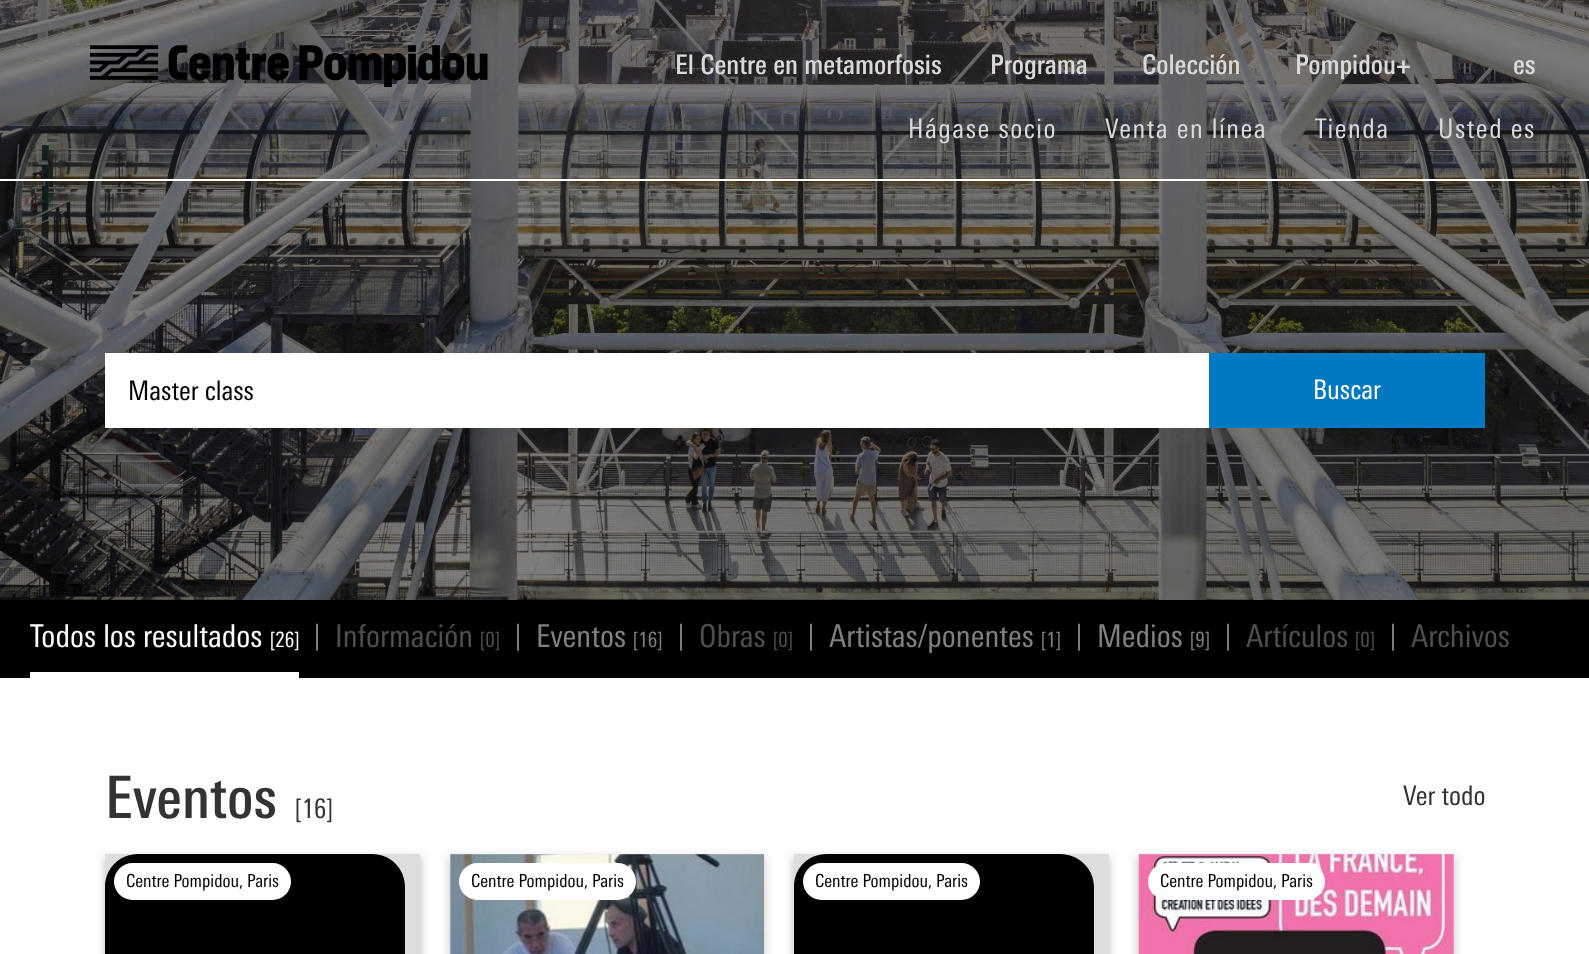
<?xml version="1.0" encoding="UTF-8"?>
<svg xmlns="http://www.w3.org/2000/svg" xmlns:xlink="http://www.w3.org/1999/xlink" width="1589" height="954">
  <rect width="100%" height="100%" fill="#ffffff" />
  <image x="0" y="0" width="1589" height="600" xlink:href="image2.png" />
  <rect y="179" width="1589" height="2" fill="#ffffff" />
  <image x="90" y="45" width="398" height="42" xlink:href="image1.png" />
  <rect x="105" y="353" width="1104" height="75" fill="#ffffff" />
  <rect x="1209" y="353" width="276" height="75" fill="#0078c2" />
  <rect y="600" width="1589" height="78" fill="#000000" />
  <rect x="30" y="672" width="269" height="6" fill="#ffffff" />
  <rect x="104" y="857" width="318" height="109" fill="#000000" fill-opacity="0.2" filter="blur(4px)" />
  <rect x="105" y="854" width="315" height="100" fill="#dddddd" />
  <path d="M 197 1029 l 17 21 h 47 l 36 -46 l 35 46 h 43 c 12 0 22 -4 30 -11 v -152 c 0 -19 -15 -33 -33 -33 h -234 c -18 0 -33 14 -33 33 v 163 h 75 z" fill="#000000" />
  <rect x="114" y="863" width="177" height="37" rx="18.5" fill="#ffffff" />
  <rect x="449" y="857" width="316" height="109" fill="#000000" fill-opacity="0.2" filter="blur(4px)" />
  <rect x="450" y="854" width="314" height="100" fill="#dddddd" />
  <image x="450" y="854" width="314" height="100" xlink:href="image3.png" />
  <rect x="459" y="863" width="177" height="37" rx="18.5" fill="#ffffff" />
  <rect x="792" y="857" width="318" height="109" fill="#000000" fill-opacity="0.2" filter="blur(4px)" />
  <rect x="794" y="854" width="315" height="100" fill="#dddddd" />
  <path d="M 885 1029 l 18 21 h 46 l 36 -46 l 35 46 h 44 c 12 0 22 -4 30 -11 v -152 c 0 -19 -16 -33 -34 -33 h -233 c -19 0 -33 14 -33 33 v 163 h 75 z" fill="#000000" />
  <rect x="803" y="863" width="177" height="37" rx="18.5" fill="#ffffff" />
  <rect x="1137" y="857" width="318" height="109" fill="#000000" fill-opacity="0.2" filter="blur(4px)" />
  <rect x="1139" y="854" width="315" height="100" fill="#dddddd" />
  <image x="1138" y="854" width="316" height="100" xlink:href="image4.png" />
  <rect x="1148" y="863" width="177" height="37" rx="18.5" fill="#ffffff" />
  <text x="675" y="74" style="font-family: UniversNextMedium; font-size: 27px; font-weight: 500; fill: #d9d9d9">El Centre en metamorfosis</text>
  <text x="990" y="74" style="font-family: UniversNextMedium; font-size: 27px; font-weight: 500; fill: #d9d9d9">Programa</text>
  <text x="1142" y="74" style="font-family: UniversNextMedium; font-size: 27px; font-weight: 500; fill: #d9d9d9">Colección</text>
  <text x="1295" y="74" style="font-family: UniversNextMedium; font-size: 27px; font-weight: 500; fill: #d9d9d9">Pompidou+</text>
  <text x="1513" y="74" style="font-family: UniversNextMedium; font-size: 27px; font-weight: 500; fill: #d9d9d9">es</text>
  <text x="908" y="138" style="font-family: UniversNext; font-size: 27px; letter-spacing: 1.5px; fill: #d9d9d9">Hágase socio</text>
  <text x="1105" y="138" style="font-family: UniversNext; font-size: 27px; letter-spacing: 1.5px; fill: #d9d9d9">Venta en línea</text>
  <text x="1315" y="138" style="font-family: UniversNext; font-size: 27px; letter-spacing: 1.5px; fill: #d9d9d9">Tienda</text>
  <text x="1438" y="138" style="font-family: UniversNext; font-size: 27px; letter-spacing: 1.5px; fill: #d9d9d9">Usted es</text>
  <text x="128" y="400" style="font-family: UniversNext; font-size: 27px; fill: #000000">Master class</text>
  <text x="1313" y="399" style="font-family: UniversNext; font-size: 27px; fill: #ffffff">Buscar</text>
  <text x="30" y="647" style="font-family: UniversNext; font-size: 31.5px; fill: #ffffff">Todos los resultados</text>
  <text x="270" y="647" style="font-family: UniversNext; font-size: 21px; fill: #ffffff">[26]</text>
  <text x="314" y="645" style="font-family: UniversNext; font-size: 27px; fill: #808080">|</text>
  <text x="335" y="647" style="font-family: UniversNext; font-size: 31.5px; fill: #4e4e4e">Información</text>
  <text x="480" y="647" style="font-family: UniversNext; font-size: 21px; fill: #4e4e4e">[0]</text>
  <text x="515" y="645" style="font-family: UniversNext; font-size: 27px; fill: #808080">|</text>
  <text x="536" y="647" style="font-family: UniversNext; font-size: 31.5px; fill: #808080">Eventos</text>
  <text x="633" y="647" style="font-family: UniversNext; font-size: 21px; fill: #808080">[16]</text>
  <text x="678" y="645" style="font-family: UniversNext; font-size: 27px; fill: #808080">|</text>
  <text x="699" y="647" style="font-family: UniversNext; font-size: 31.5px; fill: #4e4e4e">Obras</text>
  <text x="773" y="647" style="font-family: UniversNext; font-size: 21px; fill: #4e4e4e">[0]</text>
  <text x="808" y="645" style="font-family: UniversNext; font-size: 27px; fill: #808080">|</text>
  <text x="829" y="647" style="font-family: UniversNext; font-size: 31.5px; fill: #808080">Artistas/ponentes</text>
  <text x="1041" y="647" style="font-family: UniversNext; font-size: 21px; fill: #808080">[1]</text>
  <text x="1076" y="645" style="font-family: UniversNext; font-size: 27px; fill: #808080">|</text>
  <text x="1097" y="647" style="font-family: UniversNext; font-size: 31.5px; fill: #808080">Medios</text>
  <text x="1190" y="647" style="font-family: UniversNext; font-size: 21px; fill: #808080">[9]</text>
  <text x="1225" y="645" style="font-family: UniversNext; font-size: 27px; fill: #808080">|</text>
  <text x="1246" y="647" style="font-family: UniversNext; font-size: 31.5px; fill: #4e4e4e">Artículos</text>
  <text x="1355" y="647" style="font-family: UniversNext; font-size: 21px; fill: #4e4e4e">[0]</text>
  <text x="1390" y="645" style="font-family: UniversNext; font-size: 27px; fill: #808080">|</text>
  <text x="1411" y="647" style="font-family: UniversNext; font-size: 31.5px; fill: #4e4e4e">Archivos</text>
  <text x="105" y="818" style="font-family: UniversNextMedium; font-size: 58.5px; font-weight: 500; fill: #333333">Eventos</text>
  <text x="295" y="818" style="font-family: UniversNext; font-size: 27px; fill: #333333">[16]</text>
  <text x="1403" y="805" style="font-family: UniversNext; font-size: 27px; fill: #333333">Ver todo</text>
  <text x="126" y="887" style="font-family: UniversNext; font-size: 18px; fill: #000000">Centre Pompidou, Paris</text>
  <text x="471" y="887" style="font-family: UniversNext; font-size: 18px; fill: #000000">Centre Pompidou, Paris</text>
  <text x="815" y="887" style="font-family: UniversNext; font-size: 18px; fill: #000000">Centre Pompidou, Paris</text>
  <text x="1160" y="887" style="font-family: UniversNext; font-size: 18px; fill: #000000">Centre Pompidou, Paris</text>
</svg>
